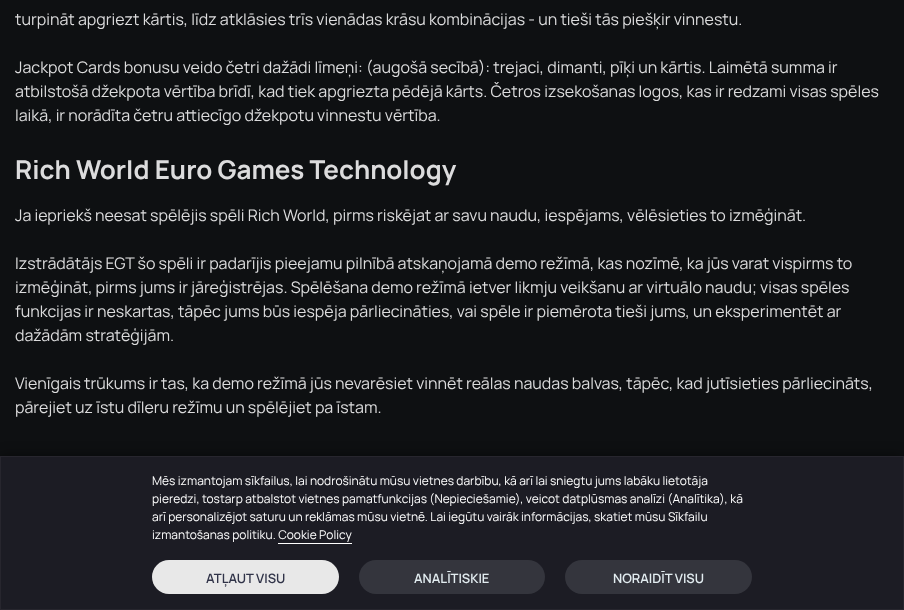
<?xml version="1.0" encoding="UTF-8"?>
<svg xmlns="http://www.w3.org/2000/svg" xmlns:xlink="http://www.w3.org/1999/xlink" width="904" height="610">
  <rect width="100%" height="100%" fill="#0e1012" />
  <rect y="457" width="904" height="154" fill="#000000" fill-opacity="0.6" filter="blur(7px)" />
  <rect x="0.5" y="456.5" width="903" height="153" fill="#1c1c24" stroke="#27262e" />
  <rect x="278" y="543" width="74" height="1" fill="#ffffff" />
  <rect x="152" y="560" width="187" height="34" rx="17" fill="#e8e8e8" />
  <rect x="359" y="560" width="186" height="34" rx="17" fill="#34353d" />
  <rect x="565" y="560" width="187" height="34" rx="17" fill="#34353d" />
  <text x="15" y="25" style="font-family: Manrope; font-size: 16px; fill: #dcdcdd">turpināt apgriezt kārtis, līdz atklāsies trīs vienādas krāsu kombinācijas - un tieši tās piešķir vinnestu.</text>
  <text x="15" y="73" style="font-family: Manrope; font-size: 16px; fill: #dcdcdd">Jackpot Cards bonusu veido četri dažādi līmeņi: (augošā secībā): trejaci, dimanti, pīķi un kārtis. Laimētā summa ir</text>
  <text x="15" y="97" style="font-family: Manrope; font-size: 16px; fill: #dcdcdd">atbilstošā džekpota vērtība brīdī, kad tiek apgriezta pēdējā kārts. Četros izsekošanas logos, kas ir redzami visas spēles</text>
  <text x="15" y="121" style="font-family: Manrope; font-size: 16px; fill: #dcdcdd">laikā, ir norādīta četru attiecīgo džekpotu vinnestu vērtība.</text>
  <text x="15" y="179" style="font-family: Manrope; font-size: 26px; font-weight: bold; fill: #dcdcdd">Rich World Euro Games Technology</text>
  <text x="15" y="221" style="font-family: Manrope; font-size: 16px; fill: #dcdcdd">Ja iepriekš neesat spēlējis spēli Rich World, pirms riskējat ar savu naudu, iespējams, vēlēsieties to izmēģināt.</text>
  <text x="15" y="269" style="font-family: Manrope; font-size: 16px; fill: #dcdcdd">Izstrādātājs EGT šo spēli ir padarījis pieejamu pilnībā atskaņojamā demo režīmā, kas nozīmē, ka jūs varat vispirms to</text>
  <text x="15" y="293" style="font-family: Manrope; font-size: 16px; fill: #dcdcdd">izmēģināt, pirms jums ir jāreģistrējas. Spēlēšana demo režīmā ietver likmju veikšanu ar virtuālo naudu; visas spēles</text>
  <text x="15" y="317" style="font-family: Manrope; font-size: 16px; fill: #dcdcdd">funkcijas ir neskartas, tāpēc jums būs iespēja pārliecināties, vai spēle ir piemērota tieši jums, un eksperimentēt ar</text>
  <text x="15" y="341" style="font-family: Manrope; font-size: 16px; fill: #dcdcdd">dažādām stratēģijām.</text>
  <text x="15" y="389" style="font-family: Manrope; font-size: 16px; fill: #dcdcdd">Vienīgais trūkums ir tas, ka demo režīmā jūs nevarēsiet vinnēt reālas naudas balvas, tāpēc, kad jutīsieties pārliecināts,</text>
  <text x="15" y="413" style="font-family: Manrope; font-size: 16px; fill: #dcdcdd">pārejiet uz īstu dīleru režīmu un spēlējiet pa īstam.</text>
  <text x="152" y="485" style="font-family: Manrope; font-size: 12px; fill: #ffffff">Mēs izmantojam sīkfailus, lai nodrošinātu mūsu vietnes darbību, kā arī lai sniegtu jums labāku lietotāja</text>
  <text x="152" y="503" style="font-family: Manrope; font-size: 12px; fill: #ffffff">pieredzi, tostarp atbalstot vietnes pamatfunkcijas (Nepieciešamie), veicot datplūsmas analīzi (Analītika), kā</text>
  <text x="152" y="521" style="font-family: Manrope; font-size: 12px; fill: #ffffff">arī personalizējot saturu un reklāmas mūsu vietnē. Lai iegūtu vairāk informācijas, skatiet mūsu Sīkfailu</text>
  <text x="152" y="539" style="font-family: Manrope; font-size: 12px; fill: #ffffff">izmantošanas politiku. Cookie Policy</text>
  <text x="206" y="583" style="font-family: Manrope; font-size: 13px; font-weight: 600; fill: #303348">ATĻAUT VISU</text>
  <text x="414" y="583" style="font-family: Manrope; font-size: 13px; font-weight: 600; fill: #e2ecf0">ANALĪTISKIE</text>
  <text x="613" y="583" style="font-family: Manrope; font-size: 13px; font-weight: 600; fill: #e2ecf0">NORAIDĪT VISU</text>
</svg>
